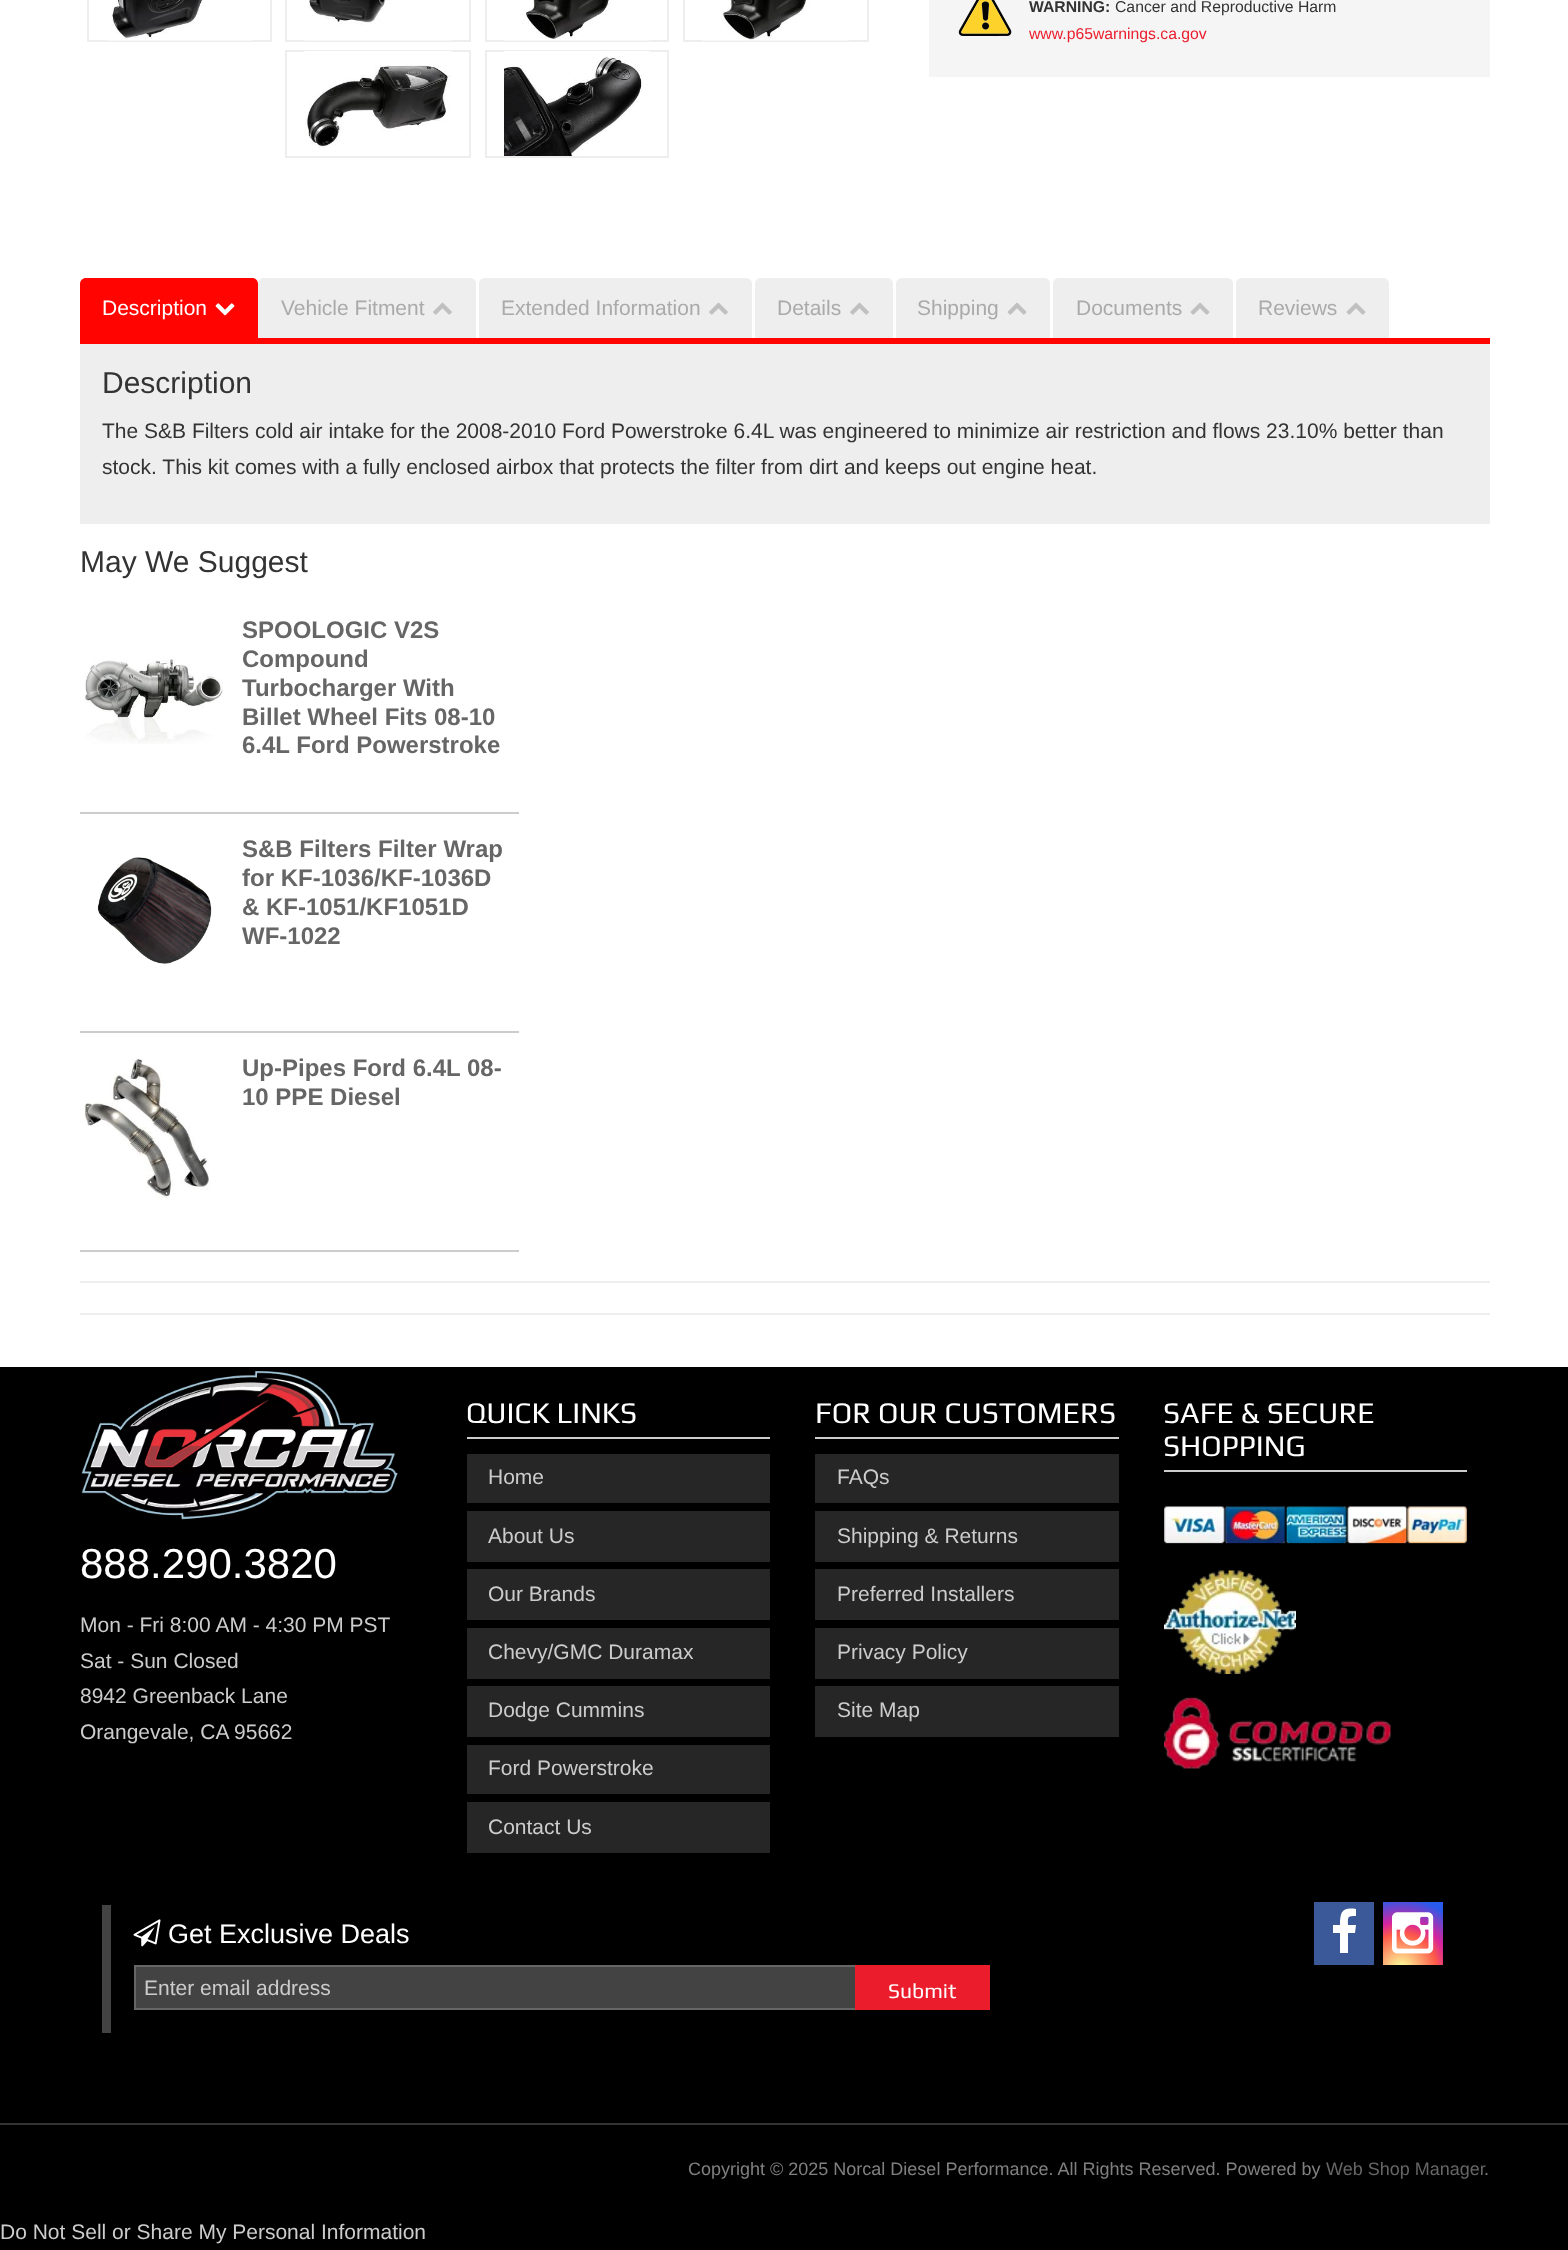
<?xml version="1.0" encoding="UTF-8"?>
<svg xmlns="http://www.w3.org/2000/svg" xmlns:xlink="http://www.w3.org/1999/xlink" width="1568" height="2250">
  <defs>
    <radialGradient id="g1" gradientUnits="userSpaceOnUse" cx="1401" cy="1969" r="79"><stop offset="0" stop-color="#fdf497" /><stop offset="0.05" stop-color="#fdf497" /><stop offset="0.45" stop-color="#fd5949" /><stop offset="0.6" stop-color="#d6249f" /><stop offset="0.9" stop-color="#285aeb" /></radialGradient>
  </defs>
  <rect width="100%" height="100%" fill="#ffffff" />
  <rect x="88" y="-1" width="183" height="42" fill="none" stroke="#eeeeee" stroke-width="2" />
  <image x="106" y="0" width="146" height="41" xlink:href="image1.png" />
  <rect x="286" y="-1" width="184" height="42" fill="none" stroke="#eeeeee" stroke-width="2" />
  <image x="304" y="0" width="148" height="41" xlink:href="image2.png" />
  <rect x="486" y="-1" width="182" height="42" fill="none" stroke="#eeeeee" stroke-width="2" />
  <image x="504" y="0" width="146" height="41" xlink:href="image3.png" />
  <rect x="684" y="-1" width="184" height="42" fill="none" stroke="#eeeeee" stroke-width="2" />
  <image x="702" y="0" width="147" height="41" xlink:href="image4.png" />
  <rect x="286" y="51" width="184" height="106" fill="none" stroke="#eeeeee" stroke-width="2" />
  <image x="304" y="51" width="148" height="97" xlink:href="image5.png" />
  <rect x="486" y="51" width="182" height="106" fill="none" stroke="#eeeeee" stroke-width="2" />
  <image x="504" y="51" width="146" height="105" xlink:href="image6.png" />
  <rect x="929" width="561" height="77" fill="#f5f5f5" />
  <image x="958" y="0" width="54" height="36" xlink:href="image7.png" />
  <path d="M 86 278 h 166 c 3.5 0 6 2.5 6 6 v 54 h -178 v -54 c 0 -3.5 2.5 -6 6 -6 z" fill="#ff0400" />
  <image x="215" y="303" width="20" height="13" xlink:href="image8.png" />
  <path d="M 264 278 h 206 c 3.5 0 6 2.5 6 6 v 54 h -218 v -54 c 0 -3.5 2.5 -6 6 -6 z" fill="#eeeeee" />
  <image x="433" y="302" width="19" height="13" xlink:href="image9.png" />
  <path d="M 485 278 h 261 c 3.5 0 6 2.5 6 6 v 54 h -273 v -54 c 0 -3.5 2.5 -6 6 -6 z" fill="#eeeeee" />
  <image x="709" y="302" width="19" height="13" xlink:href="image9.png" />
  <path d="M 761 278 h 126 c 3.5 0 6 2.5 6 6 v 54 h -138 v -54 c 0 -3.5 2.5 -6 6 -6 z" fill="#eeeeee" />
  <image x="850" y="302" width="19" height="13" xlink:href="image9.png" />
  <path d="M 902 278 h 142 c 3.5 0 6 2.5 6 6 v 54 h -154 v -54 c 0 -3.5 2.5 -6 6 -6 z" fill="#eeeeee" />
  <image x="1007" y="302" width="20" height="13" xlink:href="image10.png" />
  <path d="M 1059 278 h 168 c 3.5 0 6 2.5 6 6 v 54 h -180 v -54 c 0 -3.5 2.5 -6 6 -6 z" fill="#eeeeee" />
  <image x="1190" y="302" width="20" height="13" xlink:href="image10.png" />
  <path d="M 1242 278 h 141 c 3.5 0 6 2.5 6 6 v 54 h -153 v -54 c 0 -3.5 2.5 -6 6 -6 z" fill="#eeeeee" />
  <image x="1346" y="302" width="20" height="13" xlink:href="image10.png" />
  <rect x="80" y="344" width="1410" height="180" fill="#eeeeee" />
  <rect x="80" y="338" width="1410" height="6" fill="#ff0400" />
  <rect x="80" y="812" width="439" height="2" fill="#cccccc" />
  <image x="84" y="659" width="139" height="85" xlink:href="image11.png" />
  <rect x="80" y="1031" width="439" height="2" fill="#cccccc" />
  <image x="97" y="857" width="115" height="107" xlink:href="image12.png" />
  <rect x="80" y="1250" width="439" height="2" fill="#cccccc" />
  <image x="84" y="1058" width="125" height="141" xlink:href="image13.png" />
  <rect x="80" y="1281" width="1410" height="2" fill="#eeeeee" />
  <rect x="80" y="1313" width="1410" height="2" fill="#eeeeee" />
  <rect y="1367" width="1568" height="883" fill="#000000" />
  <image x="81" y="1371" width="317" height="149" xlink:href="image14.png" />
  <rect x="467" y="1437" width="303" height="2" fill="#cccccc" />
  <rect x="467" y="1454" width="303" height="49" fill="#262626" />
  <rect x="467" y="1511" width="303" height="51" fill="#262626" />
  <rect x="467" y="1569" width="303" height="51" fill="#262626" />
  <rect x="467" y="1628" width="303" height="51" fill="#262626" />
  <rect x="467" y="1686" width="303" height="51" fill="#262626" />
  <rect x="467" y="1745" width="303" height="49" fill="#262626" />
  <rect x="467" y="1802" width="303" height="51" fill="#262626" />
  <rect x="815" y="1437" width="304" height="2" fill="#cccccc" />
  <rect x="815" y="1454" width="304" height="49" fill="#262626" />
  <rect x="815" y="1511" width="304" height="51" fill="#262626" />
  <rect x="815" y="1569" width="304" height="51" fill="#262626" />
  <rect x="815" y="1628" width="304" height="51" fill="#262626" />
  <rect x="815" y="1686" width="304" height="51" fill="#262626" />
  <rect x="1164" y="1470" width="303" height="2" fill="#cccccc" />
  <image x="1164" y="1506" width="303" height="38" xlink:href="image15.png" />
  <image x="1164" y="1570" width="132" height="104" xlink:href="image16.png" />
  <image x="1164" y="1697" width="227" height="72" xlink:href="image17.png" />
  <rect x="102" y="1905" width="9" height="128" fill="#434343" />
  <image x="133" y="1919" width="28" height="28" xlink:href="image18.png" />
  <rect x="136" y="1967" width="719" height="41" fill="#434343" />
  <rect x="135" y="1966" width="854" height="43" fill="none" stroke="#666666" stroke-width="2" />
  <rect x="855" y="1965" width="135" height="45" fill="#eb1d2d" />
  <rect x="1314" y="1902" width="60" height="63" fill="#3b5998" />
  <path d="M 1356 1909 v 7 c -9 0 -8 1 -8 9 h 8 l -1 8 h -7 v 20 h -8 v -20 h -7 v -8 h 7 c 0 -13 2 -18 16 -16 z" fill="#ffffff" />
  <rect x="1383" y="1902" width="60" height="63" fill="url(#g1)" />
  <image x="1392" y="1912" width="42" height="42" xlink:href="image19.png" />
  <rect y="2123" width="1568" height="2" fill="#333333" />
  <text x="1029" y="12" style="font-family: Liberation Sans; font-size: 15.75px; font-weight: bold; fill: #333333">WARNING:</text>
  <text x="1115" y="12" style="font-family: Liberation Sans; font-size: 15.75px; fill: #333333">Cancer and Reproductive Harm</text>
  <text x="1029" y="39" style="font-family: Liberation Sans; font-size: 15.75px; fill: #eb1d2d">www.p65warnings.ca.gov</text>
  <text x="102" y="315" style="font-family: Liberation Sans; font-size: 21px; fill: #ffffff">Description</text>
  <text x="281" y="315" style="font-family: Liberation Sans; font-size: 21px; fill: #aaaaaa">Vehicle Fitment</text>
  <text x="501" y="315" style="font-family: Liberation Sans; font-size: 21px; fill: #aaaaaa">Extended Information</text>
  <text x="777" y="315" style="font-family: Liberation Sans; font-size: 21px; fill: #aaaaaa">Details</text>
  <text x="917" y="315" style="font-family: Liberation Sans; font-size: 21px; fill: #aaaaaa">Shipping</text>
  <text x="1076" y="315" style="font-family: Liberation Sans; font-size: 21px; fill: #aaaaaa">Documents</text>
  <text x="1258" y="315" style="font-family: Liberation Sans; font-size: 21px; fill: #aaaaaa">Reviews</text>
  <text x="102" y="393" style="font-family: Liberation Sans; font-size: 30px; fill: #333333">Description</text>
  <text x="102" y="438" style="font-family: Liberation Sans; font-size: 21px; fill: #333333">The S&amp;B Filters cold air intake for the 2008-2010 Ford Powerstroke 6.4L was engineered to minimize air restriction and flows 23.10% better than</text>
  <text x="102" y="474" style="font-family: Liberation Sans; font-size: 21px; fill: #333333">stock. This kit comes with a fully enclosed airbox that protects the filter from dirt and keeps out engine heat.</text>
  <text x="80" y="572" style="font-family: Liberation Sans; font-size: 30px; fill: #333333">May We Suggest</text>
  <text x="242" y="638" style="font-family: Liberation Sans; font-size: 24px; font-weight: bold; fill: #666666">SPOOLOGIC V2S</text>
  <text x="242" y="667" style="font-family: Liberation Sans; font-size: 24px; font-weight: bold; fill: #666666">Compound</text>
  <text x="242" y="696" style="font-family: Liberation Sans; font-size: 24px; font-weight: bold; fill: #666666">Turbocharger With</text>
  <text x="242" y="725" style="font-family: Liberation Sans; font-size: 24px; font-weight: bold; fill: #666666">Billet Wheel Fits 08-10</text>
  <text x="242" y="753" style="font-family: Liberation Sans; font-size: 24px; font-weight: bold; fill: #666666">6.4L Ford Powerstroke</text>
  <text x="242" y="857" style="font-family: Liberation Sans; font-size: 24px; font-weight: bold; fill: #666666">S&amp;B Filters Filter Wrap</text>
  <text x="242" y="886" style="font-family: Liberation Sans; font-size: 24px; font-weight: bold; fill: #666666">for KF-1036/KF-1036D</text>
  <text x="242" y="915" style="font-family: Liberation Sans; font-size: 24px; font-weight: bold; fill: #666666">&amp; KF-1051/KF1051D</text>
  <text x="242" y="944" style="font-family: Liberation Sans; font-size: 24px; font-weight: bold; fill: #666666">WF-1022</text>
  <text x="242" y="1076" style="font-family: Liberation Sans; font-size: 24px; font-weight: bold; fill: #666666">Up-Pipes Ford 6.4L 08-</text>
  <text x="242" y="1105" style="font-family: Liberation Sans; font-size: 24px; font-weight: bold; fill: #666666">10 PPE Diesel</text>
  <text x="80" y="1578" style="font-family: Liberation Sans; font-size: 42px; fill: #ffffff">888.290.3820</text>
  <text x="80" y="1632" style="font-family: Liberation Sans; font-size: 21px; fill: #cccccc">Mon - Fri 8:00 AM - 4:30 PM PST</text>
  <text x="80" y="1668" style="font-family: Liberation Sans; font-size: 21px; fill: #cccccc">Sat - Sun Closed</text>
  <text x="80" y="1703" style="font-family: Liberation Sans; font-size: 21px; fill: #cccccc">8942 Greenback Lane</text>
  <text x="80" y="1739" style="font-family: Liberation Sans; font-size: 21px; fill: #cccccc">Orangevale, CA 95662</text>
  <text x="466" y="1423" style="font-family: Play; font-size: 30px; fill: #ffffff">QUICK LINKS</text>
  <text x="488" y="1484" style="font-family: Liberation Sans; font-size: 21px; fill: #cccccc">Home</text>
  <text x="488" y="1543" style="font-family: Liberation Sans; font-size: 21px; fill: #cccccc">About Us</text>
  <text x="488" y="1601" style="font-family: Liberation Sans; font-size: 21px; fill: #cccccc">Our Brands</text>
  <text x="488" y="1659" style="font-family: Liberation Sans; font-size: 21px; fill: #cccccc">Chevy/GMC Duramax</text>
  <text x="488" y="1717" style="font-family: Liberation Sans; font-size: 21px; fill: #cccccc">Dodge Cummins</text>
  <text x="488" y="1775" style="font-family: Liberation Sans; font-size: 21px; fill: #cccccc">Ford Powerstroke</text>
  <text x="488" y="1834" style="font-family: Liberation Sans; font-size: 21px; fill: #cccccc">Contact Us</text>
  <text x="815" y="1423" style="font-family: Play; font-size: 30px; fill: #ffffff">FOR OUR CUSTOMERS</text>
  <text x="837" y="1484" style="font-family: Liberation Sans; font-size: 21px; fill: #cccccc">FAQs</text>
  <text x="837" y="1543" style="font-family: Liberation Sans; font-size: 21px; fill: #cccccc">Shipping &amp; Returns</text>
  <text x="837" y="1601" style="font-family: Liberation Sans; font-size: 21px; fill: #cccccc">Preferred Installers</text>
  <text x="837" y="1659" style="font-family: Liberation Sans; font-size: 21px; fill: #cccccc">Privacy Policy</text>
  <text x="837" y="1717" style="font-family: Liberation Sans; font-size: 21px; fill: #cccccc">Site Map</text>
  <text x="1163" y="1423" style="font-family: Play; font-size: 30px; fill: #ffffff">SAFE &amp; SECURE</text>
  <text x="1163" y="1456" style="font-family: Play; font-size: 30px; fill: #ffffff">SHOPPING</text>
  <text x="168" y="1943" style="font-family: Liberation Sans; font-size: 27px; fill: #ffffff">Get Exclusive Deals</text>
  <text x="144" y="1995" style="font-family: Liberation Sans; font-size: 21px; fill: #cccccc">Enter email address</text>
  <text x="888" y="1998" style="font-family: Play; font-size: 21px; fill: #ffffff">Submit</text>
  <text x="688" y="2175" style="font-family: Liberation Sans; font-size: 18px; fill: #808080">Copyright © 2025 Norcal Diesel Performance. All Rights Reserved. Powered by</text>
  <text x="1326" y="2175" style="font-family: Liberation Sans; font-size: 18px; fill: #666666">Web Shop Manager</text>
  <text x="1484" y="2175" style="font-family: Liberation Sans; font-size: 18px; fill: #808080">.</text>
  <text x="0" y="2239" style="font-family: Liberation Sans; font-size: 21px; fill: #cccccc">Do Not Sell or Share My Personal Information</text>
</svg>
